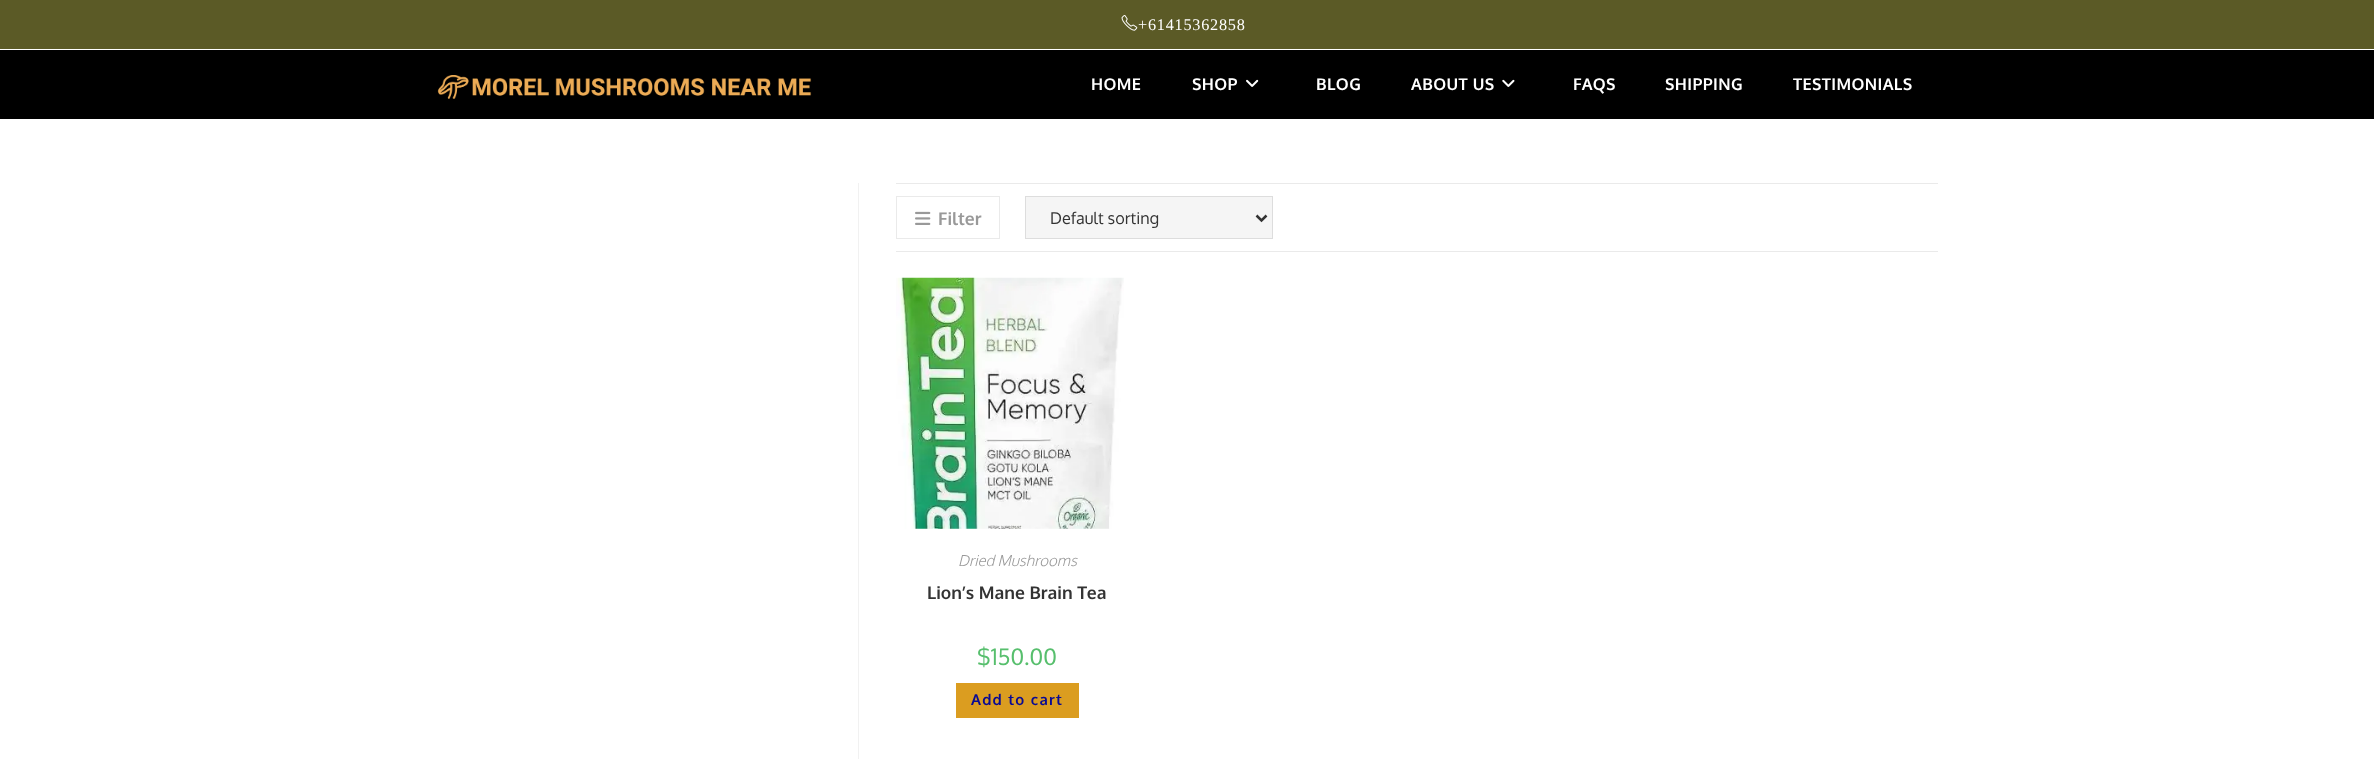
<?xml version="1.0" encoding="UTF-8"?>
<svg xmlns="http://www.w3.org/2000/svg" xmlns:xlink="http://www.w3.org/1999/xlink" width="2374" height="773">
  <rect width="100%" height="100%" fill="#ffffff" />
  <rect width="2374" height="49" fill="#5b5a26" />
  <image x="1121" y="15" width="17" height="16" xlink:href="image1.png" />
  <rect y="50" width="2374" height="69" fill="#000000" />
  <image x="437" y="75" width="375" height="24" xlink:href="image2.png" />
  <image x="1246" y="79" width="13" height="8" xlink:href="image3.png" />
  <image x="1502" y="79" width="13" height="8" xlink:href="image4.png" />
  <rect x="858" y="183" width="1" height="576" fill="#f1f1f1" />
  <rect x="896" y="183" width="1042" height="1" fill="#eaeaea" />
  <rect x="896" y="251" width="1042" height="1" fill="#eaeaea" />
  <rect x="896.5" y="196.5" width="103" height="42" fill="none" stroke="#eaeaea" />
  <image x="915" y="211" width="16" height="14" xlink:href="image5.png" />
  <rect x="1025.5" y="196.5" width="247" height="42" fill="#f5f5f5" stroke="#dddddd" />
  <path d="M 1256.5 215.5 l 5 5 l 5 -5" fill="none" stroke="#333333" stroke-width="2.5" />
  <image x="896" y="277" width="228" height="252" xlink:href="image6.png" />
  <rect x="956" y="683" width="123" height="35" fill="#db9d20" />
  <text x="1138" y="30" style="font-family: Liberation Serif; font-size: 16.25px; letter-spacing: 0.75px; fill: #ffffff">+61415362858</text>
  <text x="1091" y="90" style="font-family: Oxygen; font-size: 16.25px; font-weight: bold; letter-spacing: 0.4px; fill: #ffffff">HOME</text>
  <text x="1192" y="90" style="font-family: Oxygen; font-size: 16.25px; font-weight: bold; letter-spacing: 0.4px; fill: #ffffff">SHOP</text>
  <text x="1316" y="90" style="font-family: Oxygen; font-size: 16.25px; font-weight: bold; letter-spacing: 0.4px; fill: #ffffff">BLOG</text>
  <text x="1411" y="90" style="font-family: Oxygen; font-size: 16.25px; font-weight: bold; letter-spacing: 0.4px; fill: #ffffff">ABOUT US</text>
  <text x="1573" y="90" style="font-family: Oxygen; font-size: 16.25px; font-weight: bold; letter-spacing: 0.4px; fill: #ffffff">FAQS</text>
  <text x="1665" y="90" style="font-family: Oxygen; font-size: 16.25px; font-weight: bold; letter-spacing: 0.4px; fill: #ffffff">SHIPPING</text>
  <text x="1793" y="90" style="font-family: Oxygen; font-size: 16.25px; font-weight: bold; letter-spacing: 0.4px; fill: #ffffff">TESTIMONIALS</text>
  <text x="938" y="225" style="font-family: Oxygen; font-size: 17.5px; font-weight: bold; fill: #999999">Filter</text>
  <text x="1050" y="224" style="font-family: Oxygen; font-size: 16.25px; fill: #333333">Default sorting</text>
  <text x="958" y="566" style="font-family: Oxygen; font-size: 15px; font-weight: 300; font-style: italic; fill: #999999">Dried Mushrooms</text>
  <text x="927" y="599" style="font-family: Oxygen; font-size: 17.5px; font-weight: bold; fill: #333333">Lion’s Mane Brain Tea</text>
  <text x="977" y="665" style="font-family: Oxygen; font-size: 22.5px; fill: #57bf6d">$150.00</text>
  <text x="971" y="705" style="font-family: Oxygen; font-size: 15px; font-weight: bold; letter-spacing: 1.25px; fill: #0a0a93">Add to cart</text>
</svg>
